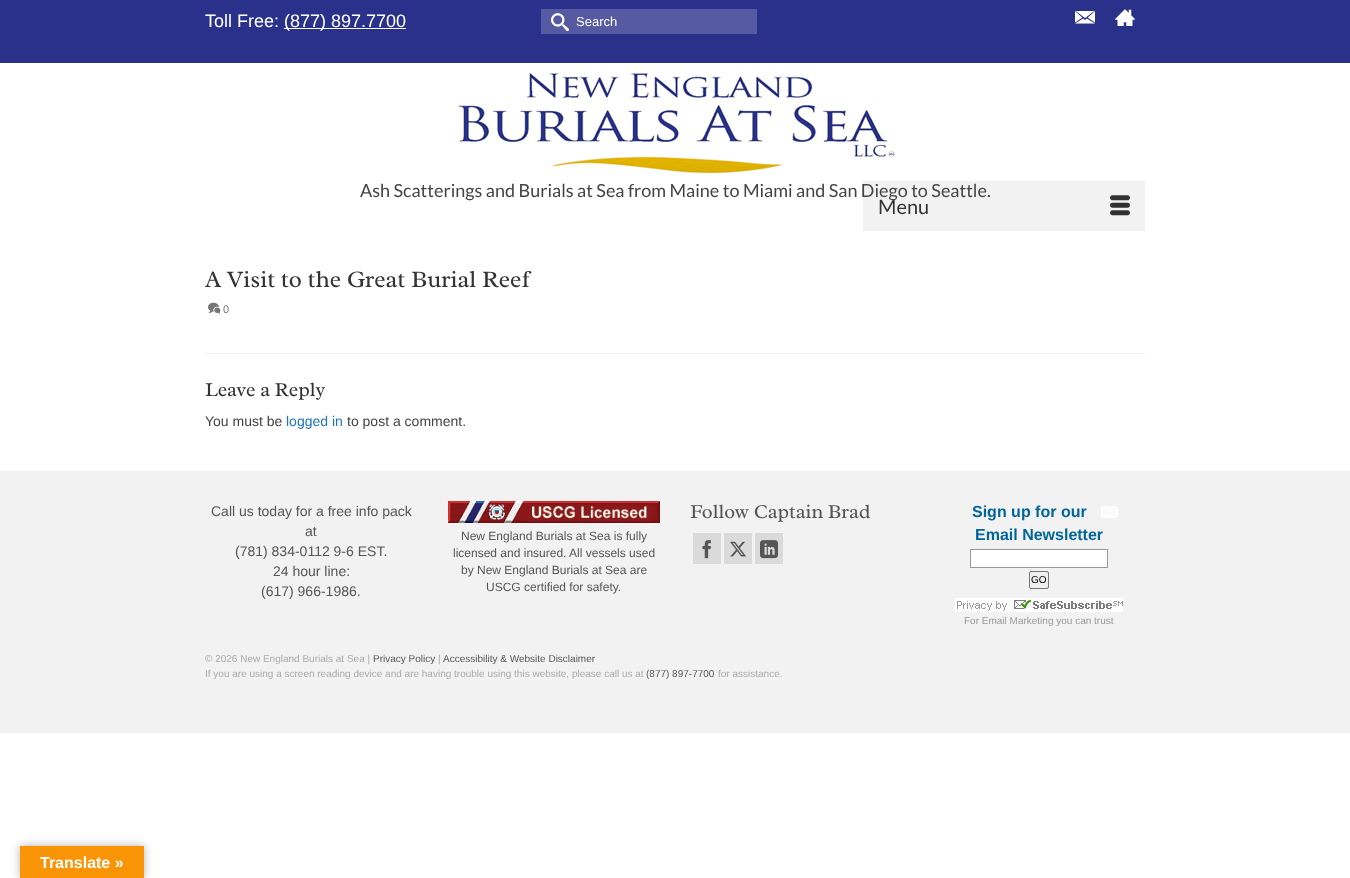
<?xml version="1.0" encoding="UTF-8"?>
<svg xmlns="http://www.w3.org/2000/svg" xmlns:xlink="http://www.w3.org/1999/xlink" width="1350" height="878">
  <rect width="100%" height="100%" fill="#ffffff" />
  <rect width="1350" height="63" fill="#2a318b" />
  <rect x="284" y="28" width="122" height="1" fill="#ffffff" />
  <rect x="541" y="9" width="216" height="25" fill="#555aa2" />
  <image x="551" y="13" width="18" height="19" xlink:href="image1.png" />
  <image x="1075" y="11" width="20" height="13" xlink:href="image2.png" />
  <image x="1115" y="9" width="20" height="17" xlink:href="image3.png" />
  <image x="458" y="71" width="439" height="103" xlink:href="image4.png" />
  <rect x="863" y="181" width="282" height="50" fill="#000000" fill-opacity="0.05" />
  <image x="1110" y="195" width="20" height="21" xlink:href="image5.png" />
  <image x="208" y="302" width="13" height="12" xlink:href="image6.png" />
  <rect x="205" y="353" width="940" height="1" fill="#f2f2f2" />
  <rect y="471" width="1350" height="262" fill="#f2f2f2" />
  <image x="448" y="501" width="212" height="22" xlink:href="image7.png" />
  <rect x="693" y="533" width="28" height="31" fill="#dadada" />
  <image x="702" y="540" width="9" height="19" xlink:href="image8.png" />
  <rect x="724" y="533" width="28" height="31" fill="#dadada" />
  <image x="730" y="541" width="16" height="16" xlink:href="image9.png" />
  <rect x="755" y="533" width="28" height="31" fill="#dadada" />
  <image x="760" y="540" width="18" height="19" xlink:href="image10.png" />
  <image x="1101" y="506" width="17" height="12" xlink:href="image11.png" />
  <rect x="970.5" y="549.5" width="137" height="18" fill="#ffffff" stroke="#999999" />
  <rect x="1029.5" y="571.5" width="19" height="17" rx="1.5" fill="#efefef" stroke="#767676" />
  <image x="955" y="598" width="168" height="14" xlink:href="image12.png" />
  <rect x="20" y="846" width="124" height="32" fill="#000000" fill-opacity="0.3" filter="blur(4.5px)" />
  <rect x="20" y="846" width="124" height="32" fill="#f89406" />
  <text x="205" y="27" style="font-family: Liberation Sans; font-size: 18px; fill: #ffffff">Toll Free:</text>
  <text x="284" y="27" style="font-family: Liberation Sans; font-size: 18px; fill: #ffffff">(877) 897.7700</text>
  <text x="576" y="26" style="font-family: Liberation Sans; font-size: 13px; fill: #ffffff">Search</text>
  <text x="360" y="197" style="font-family: Lato; font-size: 18px; fill: #444444">Ash Scatterings and Burials at Sea from Maine to Miami and San Diego to Seattle.</text>
  <text x="878" y="214" style="font-family: Lato; font-size: 20px; fill: #333333">Menu</text>
  <text x="205" y="287" style="font-family: Radley; font-size: 24px; fill: #333333">A Visit to the Great Burial Reef</text>
  <text x="223" y="313" style="font-family: Liberation Sans; font-size: 11px; fill: #777777">0</text>
  <text x="205" y="396" style="font-family: Radley; font-size: 20px; fill: #333333">Leave a Reply</text>
  <text x="205" y="426" style="font-family: Liberation Sans; font-size: 14px; fill: #444444">You must be</text>
  <text x="286" y="426" style="font-family: Liberation Sans; font-size: 14px; fill: #1e73be">logged in</text>
  <text x="347" y="426" style="font-family: Liberation Sans; font-size: 14px; fill: #444444">to post a comment.</text>
  <text x="211" y="516" style="font-family: Liberation Sans; font-size: 14px; fill: #555555">Call us today for a free info pack</text>
  <text x="305" y="536" style="font-family: Liberation Sans; font-size: 14px; fill: #555555">at</text>
  <text x="235" y="556" style="font-family: Liberation Sans; font-size: 14px; fill: #555555">(781) 834-0112 9-6 EST.</text>
  <text x="273" y="576" style="font-family: Liberation Sans; font-size: 14px; fill: #555555">24 hour line:</text>
  <text x="261" y="596" style="font-family: Liberation Sans; font-size: 14px; fill: #555555">(617) 966-1986.</text>
  <text x="461" y="540" style="font-family: Liberation Sans; font-size: 12px; fill: #555555">New England Burials at Sea is fully</text>
  <text x="453" y="557" style="font-family: Liberation Sans; font-size: 12px; fill: #555555">licensed and insured. All vessels used</text>
  <text x="461" y="574" style="font-family: Liberation Sans; font-size: 12px; fill: #555555">by New England Burials at Sea are</text>
  <text x="486" y="591" style="font-family: Liberation Sans; font-size: 12px; fill: #555555">USCG certified for safety.</text>
  <text x="690" y="518" style="font-family: Radley; font-size: 20px; fill: #555555">Follow Captain Brad</text>
  <text x="972" y="517" style="font-family: Liberation Sans; font-size: 16px; font-weight: bold; fill: #006699">Sign up for our</text>
  <text x="975" y="540" style="font-family: Liberation Sans; font-size: 16px; font-weight: bold; fill: #006699">Email Newsletter</text>
  <text x="1031" y="583" style="font-family: Liberation Sans; font-size: 10px; fill: #000000">GO</text>
  <text x="964" y="624" style="font-family: Liberation Sans; font-size: 10px; fill: #999999">For Email Marketing you can trust</text>
  <text x="205" y="662" style="font-family: Liberation Sans; font-size: 10px; fill: #aaaaaa">© 2026 New England Burials at Sea |</text>
  <text x="373" y="662" style="font-family: Liberation Sans; font-size: 10px; fill: #555555">Privacy Policy</text>
  <text x="438" y="662" style="font-family: Liberation Sans; font-size: 10px; fill: #aaaaaa">|</text>
  <text x="443" y="662" style="font-family: Liberation Sans; font-size: 10px; fill: #555555">Accessibility &amp; Website Disclaimer</text>
  <text x="205" y="677" style="font-family: Liberation Sans; font-size: 10px; fill: #aaaaaa">If you are using a screen reading device and are having trouble using this website, please call us at</text>
  <text x="646" y="677" style="font-family: Liberation Sans; font-size: 10px; fill: #555555">(877) 897-7700</text>
  <text x="718" y="677" style="font-family: Liberation Sans; font-size: 10px; fill: #aaaaaa">for assistance.</text>
  <text x="40" y="868" style="font-family: Liberation Sans; font-size: 16px; font-weight: bold; fill: #ffffff">Translate »</text>
</svg>
